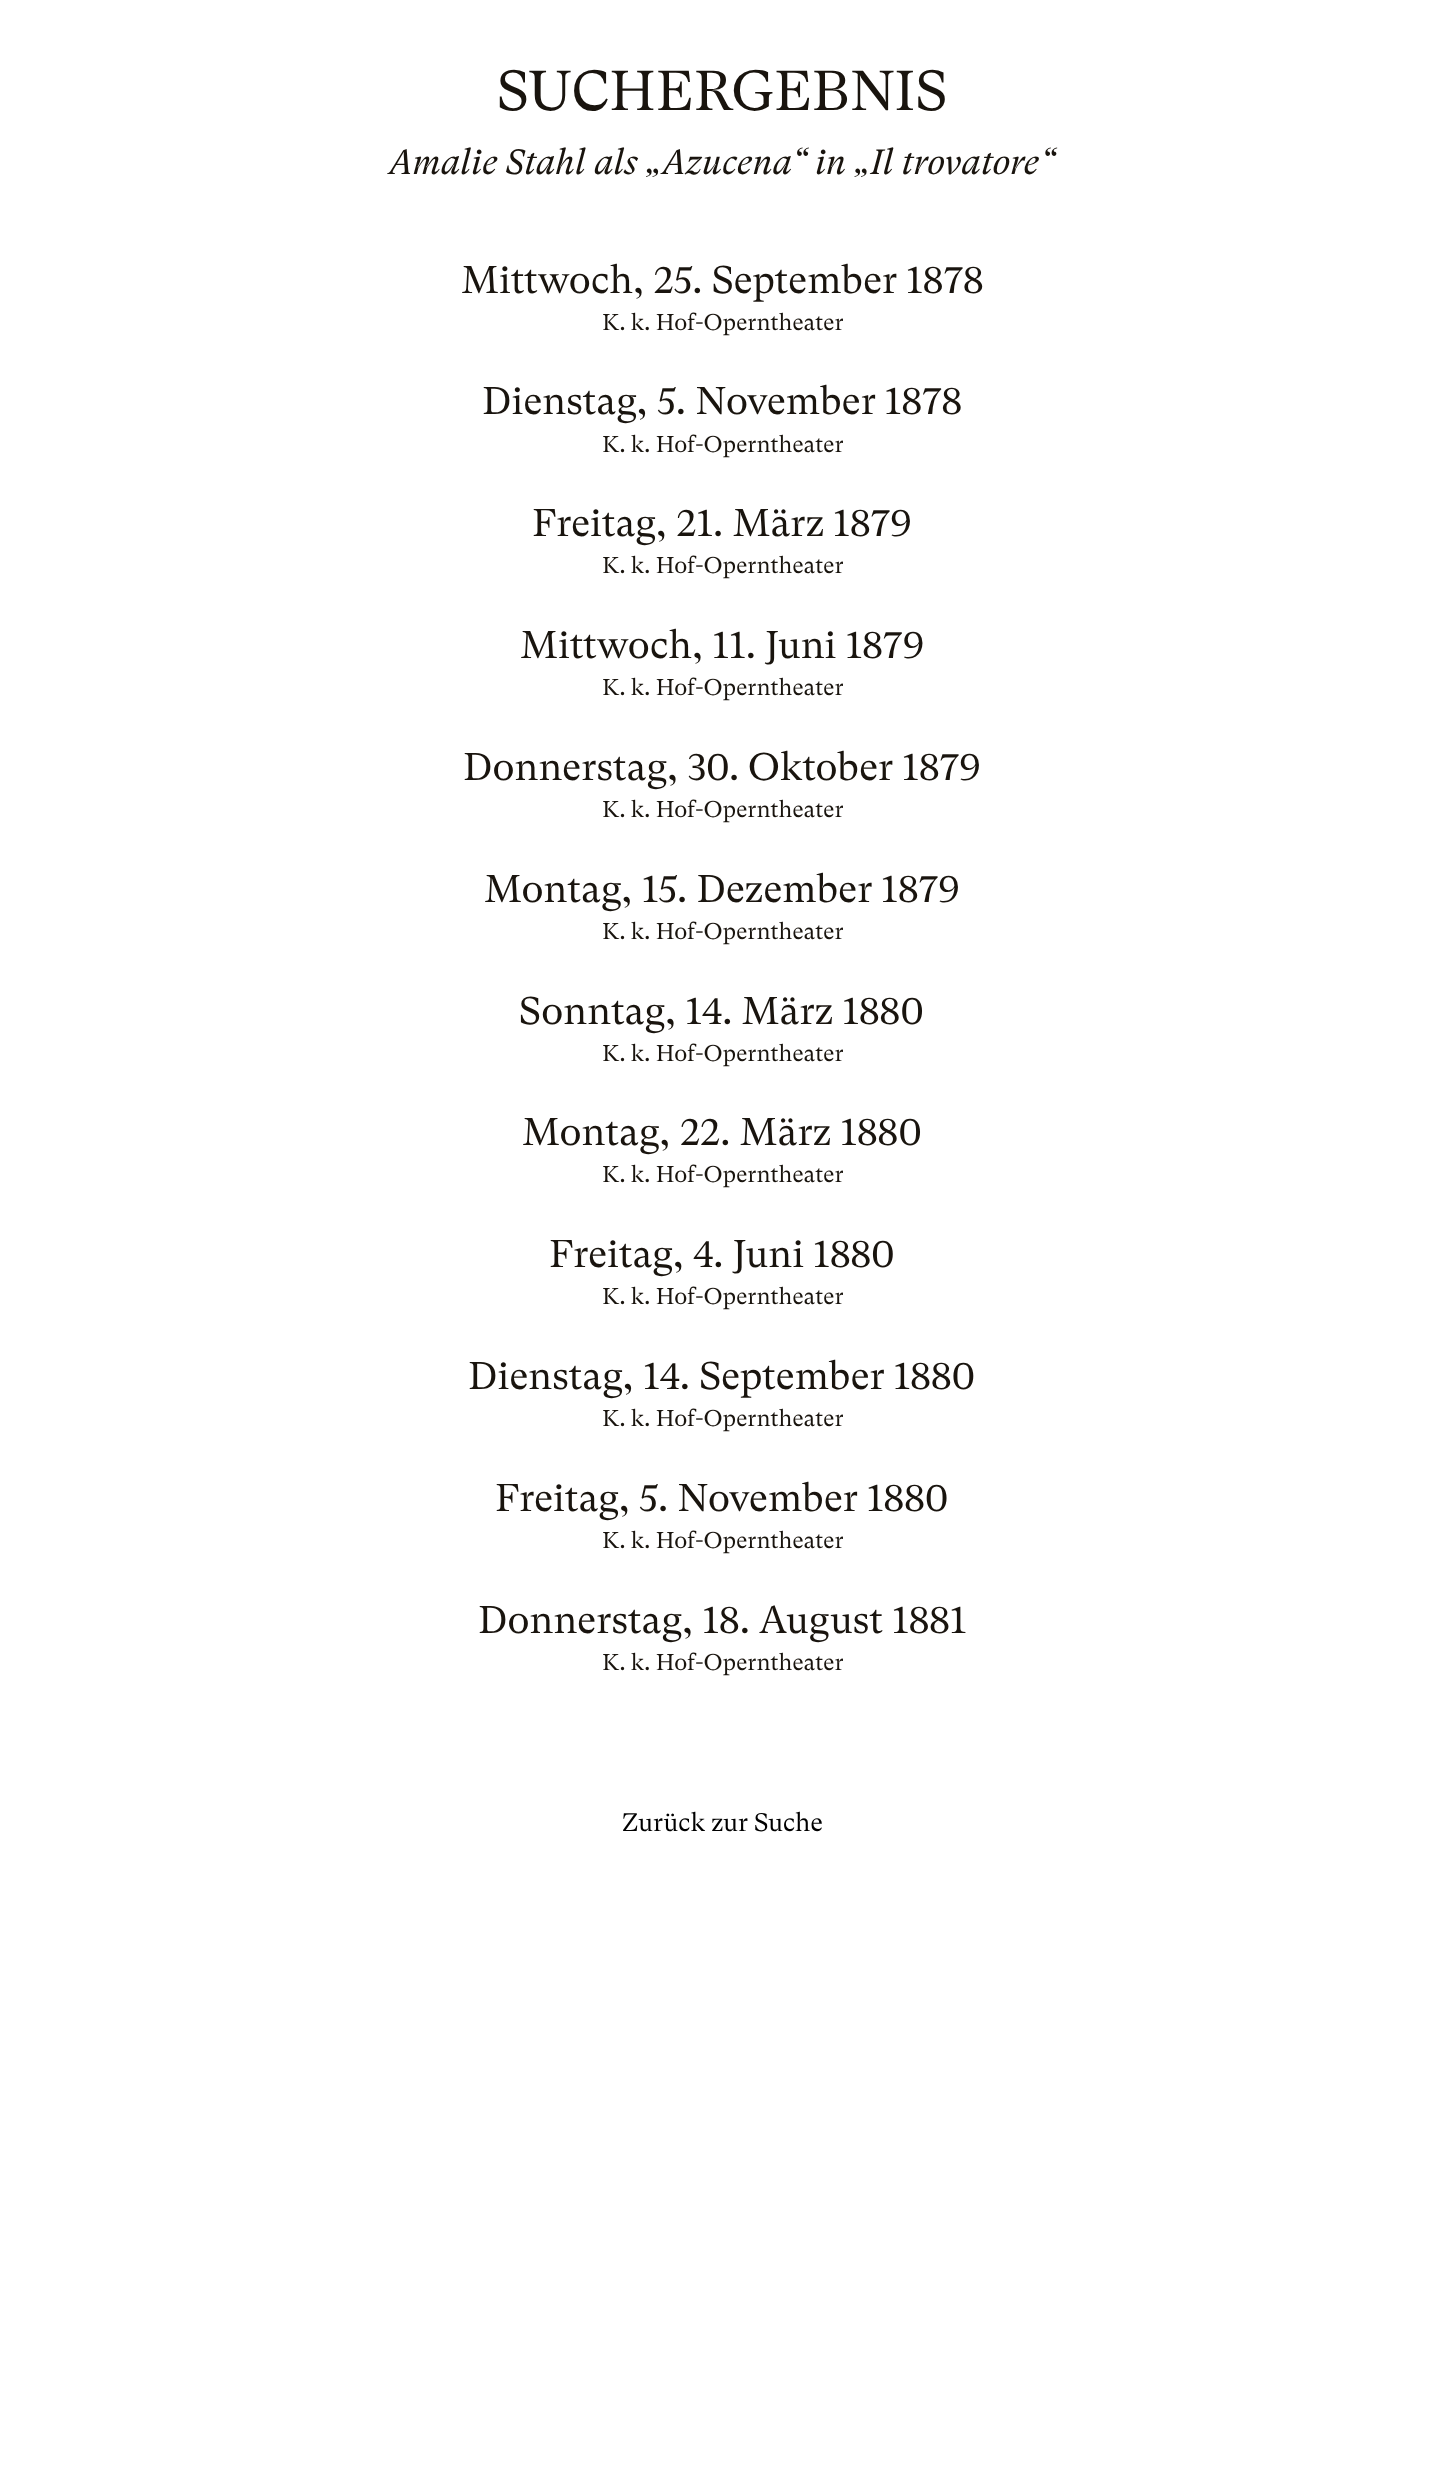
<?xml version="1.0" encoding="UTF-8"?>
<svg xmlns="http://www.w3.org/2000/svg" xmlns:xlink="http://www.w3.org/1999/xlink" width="1443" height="2480">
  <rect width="100%" height="100%" fill="#ffffff" />
  <text x="497" y="110" style="font-family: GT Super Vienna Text; font-size: 56px; fill: #19140e">SUCHERGEBNIS</text>
  <text x="389" y="174" style="font-family: GT Super Vienna Text; font-size: 35px; font-style: italic; fill: #19140e">Amalie Stahl als „Azucena“ in „Il trovatore“</text>
  <text x="461" y="293" style="font-family: GT Super Vienna Text; font-size: 38.5px; fill: #19140e">Mittwoch, 25. September 1878</text>
  <text x="602" y="330" style="font-family: GT Super Vienna Text; font-size: 22.75px; fill: #19140e">K. k. Hof-Operntheater</text>
  <text x="482" y="414" style="font-family: GT Super Vienna Text; font-size: 38.5px; fill: #19140e">Dienstag, 5. November 1878</text>
  <text x="602" y="452" style="font-family: GT Super Vienna Text; font-size: 22.75px; fill: #19140e">K. k. Hof-Operntheater</text>
  <text x="532" y="536" style="font-family: GT Super Vienna Text; font-size: 38.5px; fill: #19140e">Freitag, 21. März 1879</text>
  <text x="602" y="573" style="font-family: GT Super Vienna Text; font-size: 22.75px; fill: #19140e">K. k. Hof-Operntheater</text>
  <text x="520" y="658" style="font-family: GT Super Vienna Text; font-size: 38.5px; fill: #19140e">Mittwoch, 11. Juni 1879</text>
  <text x="602" y="695" style="font-family: GT Super Vienna Text; font-size: 22.75px; fill: #19140e">K. k. Hof-Operntheater</text>
  <text x="463" y="780" style="font-family: GT Super Vienna Text; font-size: 38.5px; fill: #19140e">Donnerstag, 30. Oktober 1879</text>
  <text x="602" y="817" style="font-family: GT Super Vienna Text; font-size: 22.75px; fill: #19140e">K. k. Hof-Operntheater</text>
  <text x="484" y="902" style="font-family: GT Super Vienna Text; font-size: 38.5px; fill: #19140e">Montag, 15. Dezember 1879</text>
  <text x="602" y="939" style="font-family: GT Super Vienna Text; font-size: 22.75px; fill: #19140e">K. k. Hof-Operntheater</text>
  <text x="519" y="1024" style="font-family: GT Super Vienna Text; font-size: 38.5px; fill: #19140e">Sonntag, 14. März 1880</text>
  <text x="602" y="1061" style="font-family: GT Super Vienna Text; font-size: 22.75px; fill: #19140e">K. k. Hof-Operntheater</text>
  <text x="522" y="1145" style="font-family: GT Super Vienna Text; font-size: 38.5px; fill: #19140e">Montag, 22. März 1880</text>
  <text x="602" y="1182" style="font-family: GT Super Vienna Text; font-size: 22.75px; fill: #19140e">K. k. Hof-Operntheater</text>
  <text x="549" y="1267" style="font-family: GT Super Vienna Text; font-size: 38.5px; fill: #19140e">Freitag, 4. Juni 1880</text>
  <text x="602" y="1304" style="font-family: GT Super Vienna Text; font-size: 22.75px; fill: #19140e">K. k. Hof-Operntheater</text>
  <text x="468" y="1389" style="font-family: GT Super Vienna Text; font-size: 38.5px; fill: #19140e">Dienstag, 14. September 1880</text>
  <text x="602" y="1426" style="font-family: GT Super Vienna Text; font-size: 22.75px; fill: #19140e">K. k. Hof-Operntheater</text>
  <text x="495" y="1511" style="font-family: GT Super Vienna Text; font-size: 38.5px; fill: #19140e">Freitag, 5. November 1880</text>
  <text x="602" y="1548" style="font-family: GT Super Vienna Text; font-size: 22.75px; fill: #19140e">K. k. Hof-Operntheater</text>
  <text x="478" y="1633" style="font-family: GT Super Vienna Text; font-size: 38.5px; fill: #19140e">Donnerstag, 18. August 1881</text>
  <text x="602" y="1670" style="font-family: GT Super Vienna Text; font-size: 22.75px; fill: #19140e">K. k. Hof-Operntheater</text>
  <text x="622" y="1831" style="font-family: GT Super Vienna Text; font-size: 25.25px; fill: #000000">Zurück zur Suche</text>
</svg>
